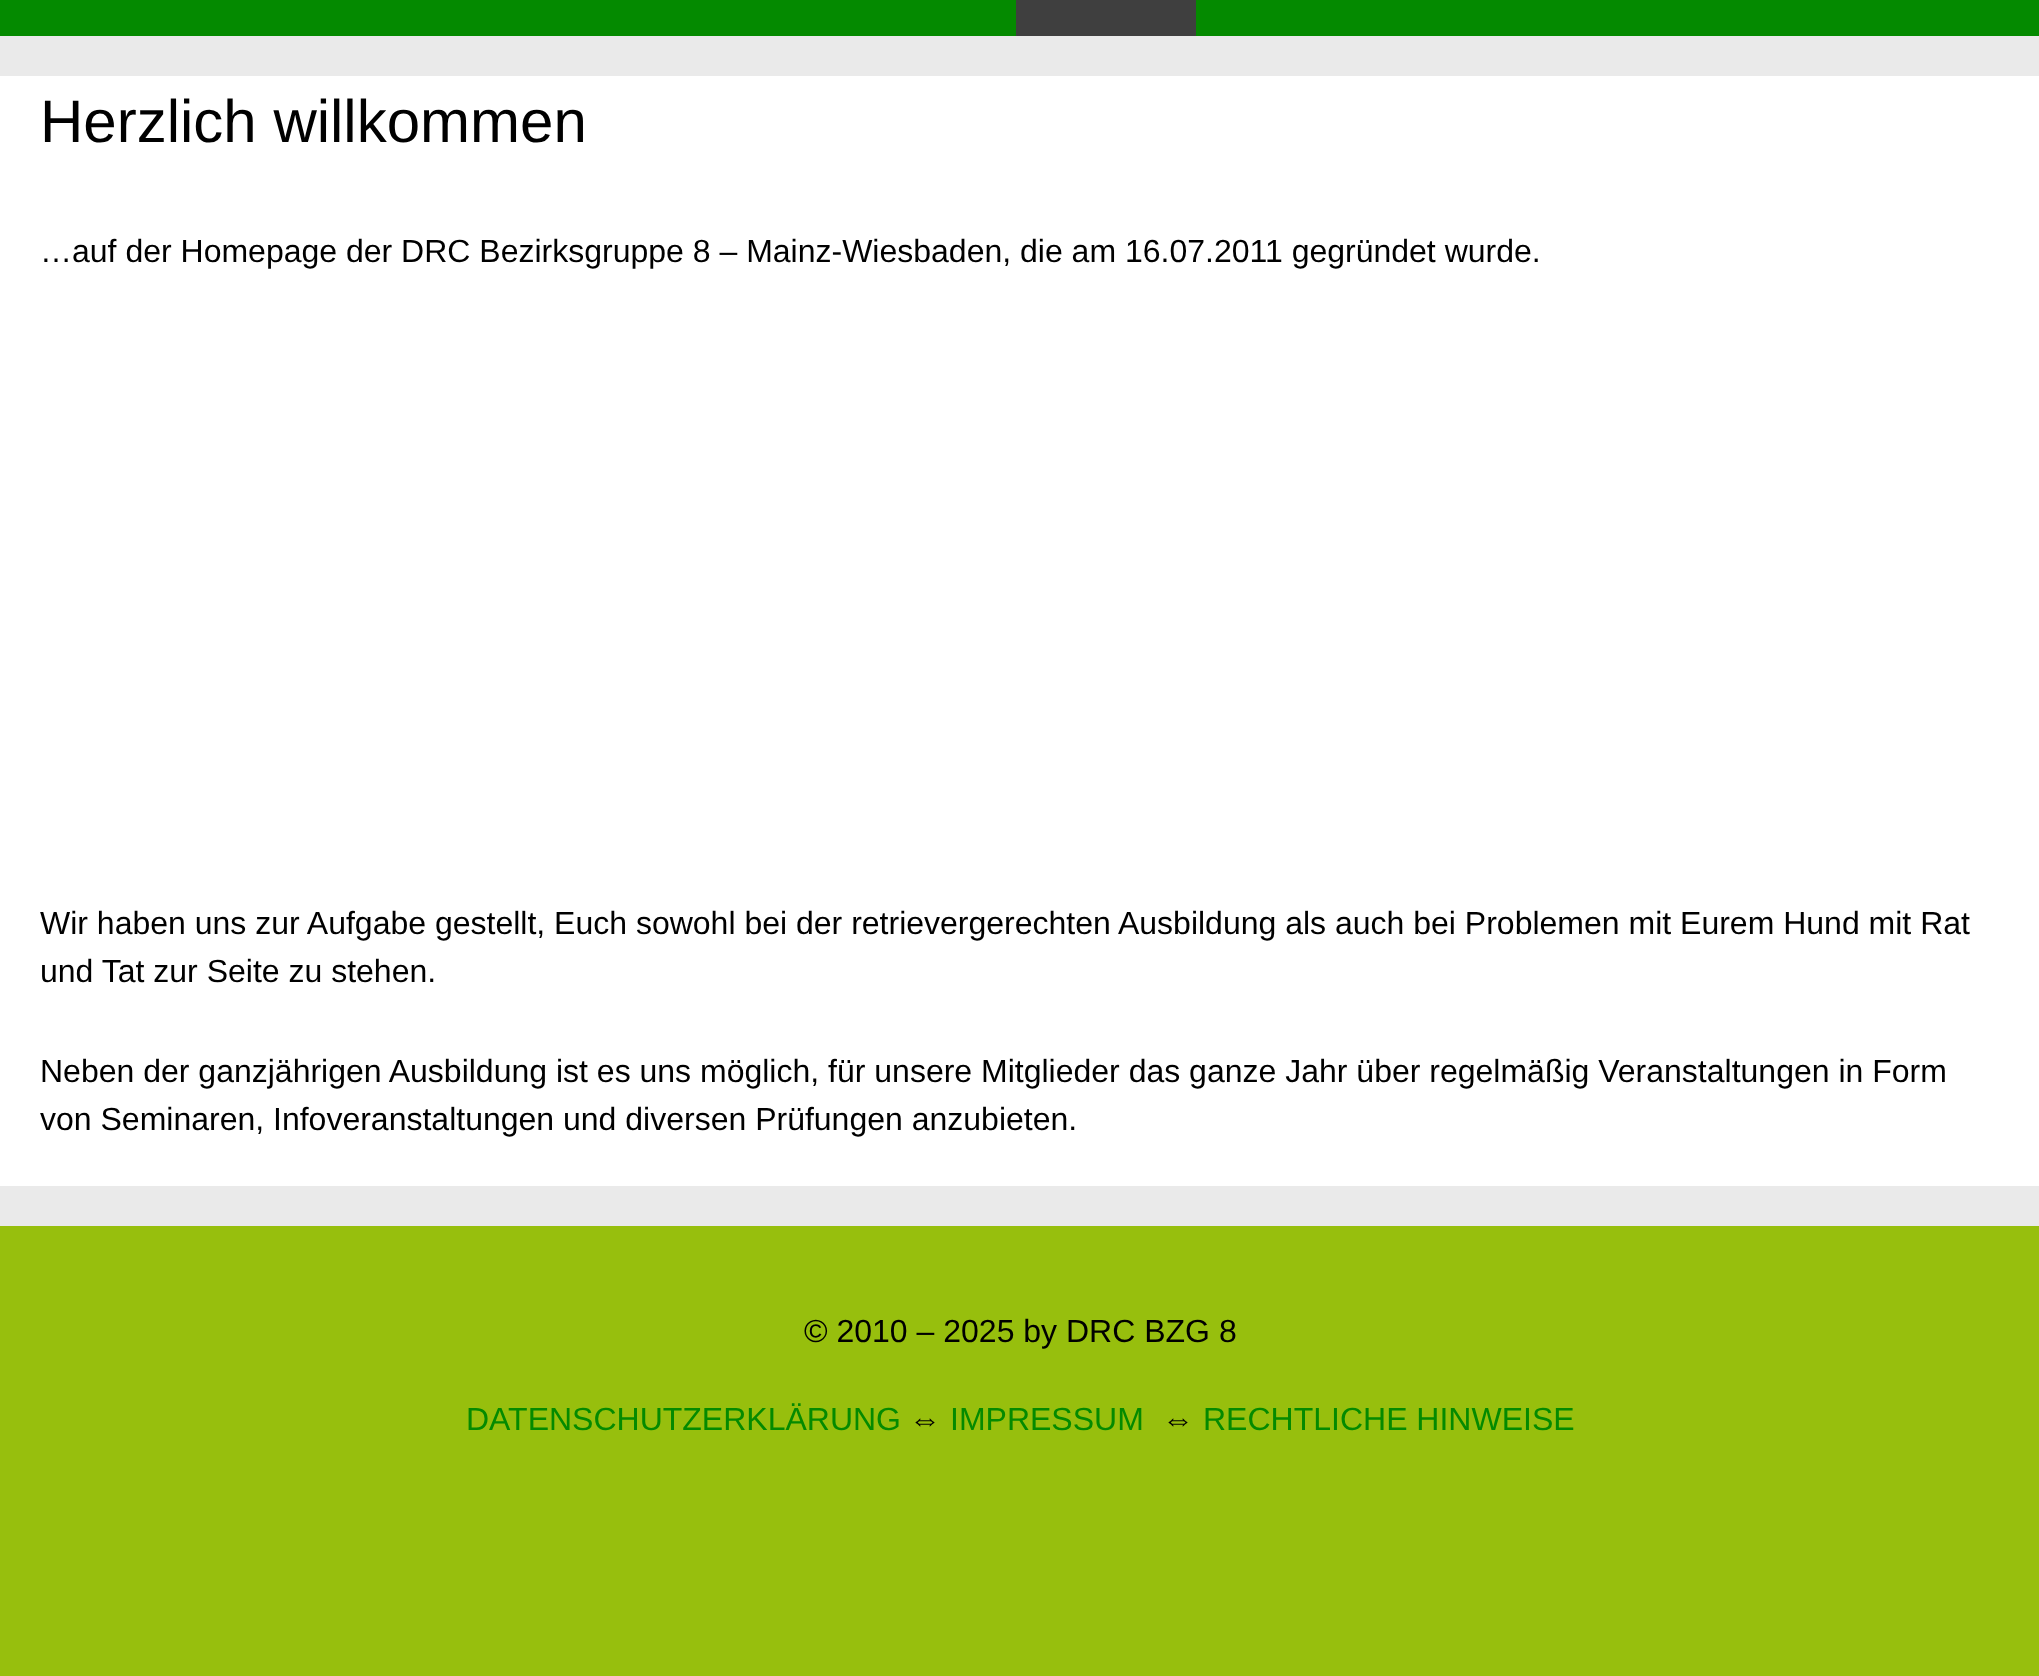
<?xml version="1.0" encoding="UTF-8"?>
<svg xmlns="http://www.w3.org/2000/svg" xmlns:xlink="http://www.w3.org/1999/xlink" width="2039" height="1676">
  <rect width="100%" height="100%" fill="#eaeaea" />
  <rect width="2039" height="36" fill="#048a00" />
  <rect x="1016" width="180" height="36" fill="#3f3f3f" />
  <rect y="76" width="2039" height="1110" fill="#ffffff" />
  <rect y="1226" width="2039" height="450" fill="#97bf0d" />
  <text x="40" y="142" style="font-family: Liberation Sans; font-size: 60px; fill: #000000">Herzlich willkommen</text>
  <text x="40" y="262" style="font-family: Liberation Sans; font-size: 32px; fill: #000000">…auf der Homepage der DRC Bezirksgruppe 8 – Mainz-Wiesbaden, die am 16.07.2011 gegründet wurde.</text>
  <text x="40" y="934" style="font-family: Liberation Sans; font-size: 32px; fill: #000000">Wir haben uns zur Aufgabe gestellt, Euch sowohl bei der retrievergerechten Ausbildung als auch bei Problemen mit Eurem Hund mit Rat</text>
  <text x="40" y="982" style="font-family: Liberation Sans; font-size: 32px; fill: #000000">und Tat zur Seite zu stehen.</text>
  <text x="40" y="1082" style="font-family: Liberation Sans; font-size: 32px; fill: #000000">Neben der ganzjährigen Ausbildung ist es uns möglich, für unsere Mitglieder das ganze Jahr über regelmäßig Veranstaltungen in Form</text>
  <text x="40" y="1130" style="font-family: Liberation Sans; font-size: 32px; fill: #000000">von Seminaren, Infoveranstaltungen und diversen Prüfungen anzubieten.</text>
  <text x="804" y="1342" style="font-family: Liberation Sans; font-size: 32px; fill: #000000">© 2010 – 2025 by DRC BZG 8</text>
  <text x="466" y="1430" style="font-family: Liberation Sans; font-size: 32px; fill: #048a00">DATENSCHUTZERKLÄRUNG</text>
  <text x="909" y="1430" style="font-family: Liberation Sans; font-size: 32px; fill: #000000">⇔</text>
  <text x="950" y="1430" style="font-family: Liberation Sans; font-size: 32px; fill: #048a00">IMPRESSUM</text>
  <text x="1162" y="1430" style="font-family: Liberation Sans; font-size: 32px; fill: #000000">⇔</text>
  <text x="1203" y="1430" style="font-family: Liberation Sans; font-size: 32px; fill: #048a00">RECHTLICHE HINWEISE</text>
</svg>
